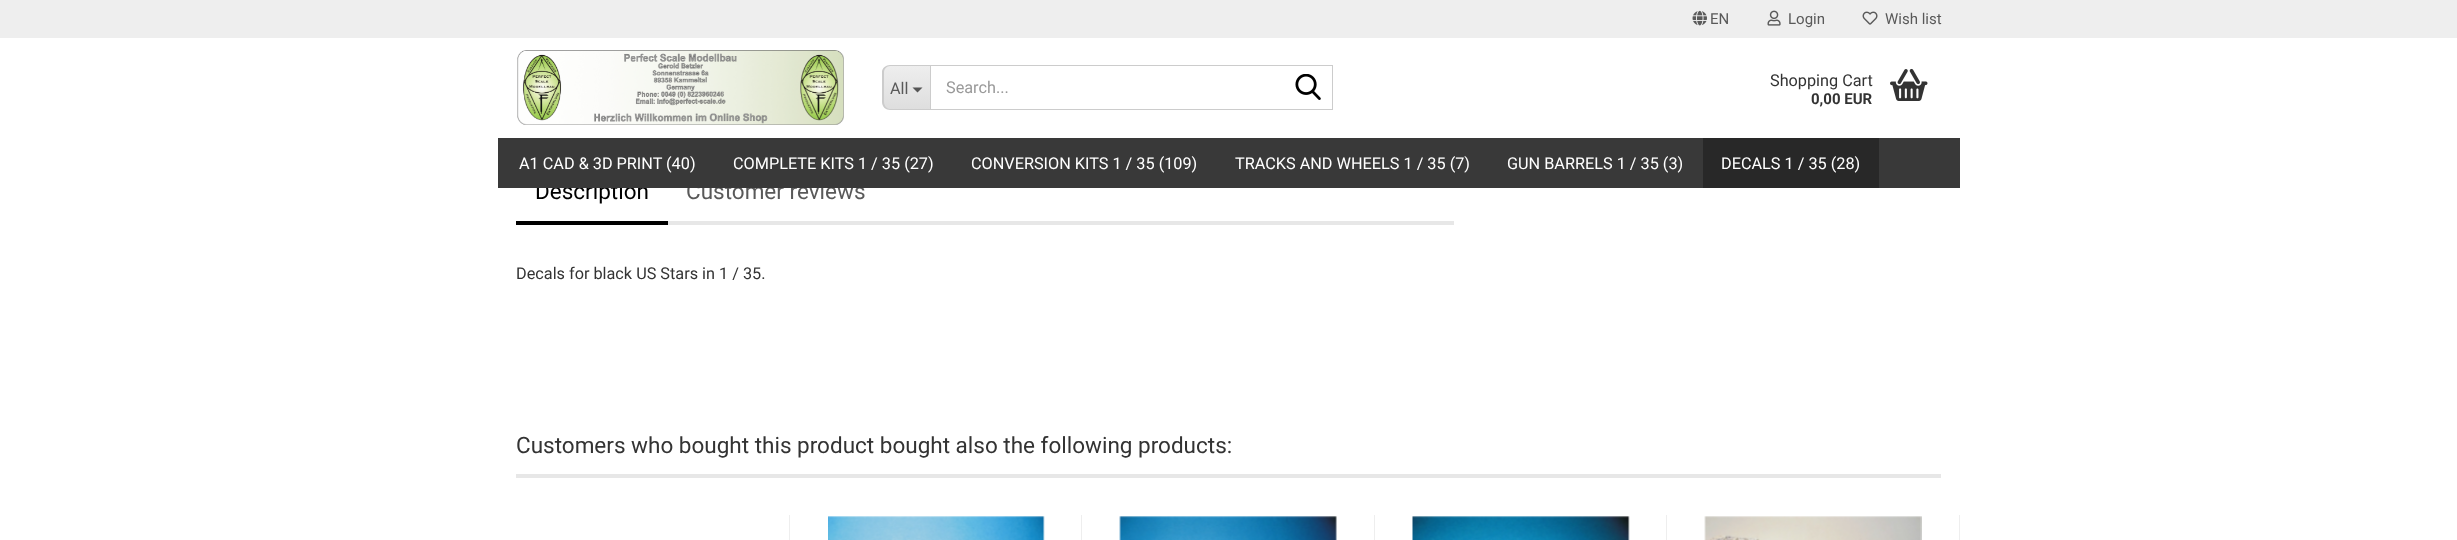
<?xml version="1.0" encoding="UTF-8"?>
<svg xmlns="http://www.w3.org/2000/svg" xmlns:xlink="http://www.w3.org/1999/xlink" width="2457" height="540">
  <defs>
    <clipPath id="clip1"><path d="M 891 65 h 39 v 45 h -39 c -4.5 0 -8 -3.5 -8 -8 v -29 c 0 -4.5 3.5 -8 8 -8 z" /></clipPath>
    <linearGradient id="g1" gradientUnits="userSpaceOnUse" x1="907" y1="66" x2="907" y2="109"><stop offset="0" stop-color="#eeeeee" /><stop offset="1" stop-color="#dedede" /></linearGradient>
  </defs>
  <rect width="100%" height="100%" fill="#ffffff" />
  <rect width="2457" height="38" fill="#eeeeee" />
  <image x="1692" y="10" width="15" height="16" xlink:href="image1.png" />
  <image x="1767" y="10" width="14" height="16" xlink:href="image2.png" />
  <image x="1862" y="11" width="16" height="14" xlink:href="image3.png" />
  <image x="517" y="50" width="327" height="75" xlink:href="image4.png" />
  <g clip-path="url(#clip1)">
    <rect x="884" y="66" width="46" height="43" fill="url(#g1)" />
  </g>
  <path d="M 890 65 h 40 v 45 h -40 c -4 0 -8 -3 -8 -8 v -30 c 0 -4 4 -7 8 -7 z m 0 1 h 40 v 43 h -40 c -3 0 -6 -3 -6 -7 v -30 c 0 -3 3 -6 6 -6 z" fill="#cccccc" fill-rule="evenodd" />
  <path d="M 912.5 87.5 h 10 l -5 5 z" fill="#555555" />
  <rect x="930.5" y="65.5" width="402" height="44" fill="none" stroke="#cccccc" />
  <image x="1295" y="74" width="26" height="26" xlink:href="image5.png" />
  <image x="1890" y="68" width="38" height="33" xlink:href="image6.png" />
  <rect x="668" y="221" width="786" height="4" fill="#e7e7e7" />
  <rect x="516" y="221" width="152" height="4" fill="#000000" />
  <rect x="516" y="474" width="1425" height="4" fill="#e7e7e7" />
  <rect x="789" y="515" width="1" height="25" fill="#eeeeee" />
  <rect x="1081" y="515" width="1" height="25" fill="#eeeeee" />
  <image x="828" y="516" width="217" height="24" xlink:href="image7.png" />
  <rect x="1374" y="515" width="1" height="25" fill="#eeeeee" />
  <image x="1119" y="516" width="218" height="24" xlink:href="image8.png" />
  <rect x="1666" y="515" width="1" height="25" fill="#eeeeee" />
  <image x="1412" y="516" width="218" height="24" xlink:href="image9.png" />
  <rect x="1959" y="515" width="1" height="25" fill="#eeeeee" />
  <image x="1704" y="516" width="218" height="24" xlink:href="image10.png" />
  <text x="1710" y="24" style="font-family: Roboto; font-size: 15px; fill: #595959">EN</text>
  <text x="1788" y="24" style="font-family: Roboto; font-size: 15px; fill: #595959">Login</text>
  <text x="1885" y="24" style="font-family: Roboto; font-size: 15px; fill: #595959">Wish list</text>
  <text x="890" y="94" style="font-family: Roboto; font-size: 16.25px; fill: #595959">All</text>
  <text x="946" y="93" style="font-family: Roboto; font-size: 16.25px; fill: #999999">Search...</text>
  <text x="1770" y="86" style="font-family: Roboto; font-size: 16.25px; fill: #333333">Shopping Cart</text>
  <text x="1811" y="104" style="font-family: Roboto; font-size: 15px; font-weight: bold; fill: #333333">0,00 EUR</text>
  <text x="535" y="199" style="font-family: Roboto; font-size: 22.5px; fill: #000000">Description</text>
  <text x="686" y="199" style="font-family: Roboto; font-size: 22.5px; fill: #595959">Customer reviews</text>
  <rect x="536" y="182" width="328" height="6" fill="#ffffff" />
  <rect x="498" y="138" width="1462" height="50" fill="#393939" />
  <rect x="1703" y="138" width="176" height="50" fill="#282828" />
  <text x="1721" y="169" style="font-family: Roboto; font-size: 16.25px; fill: #ffffff">DECALS 1 / 35 (28)</text>
  <text x="1507" y="169" style="font-family: Roboto; font-size: 16.25px; fill: #ffffff">GUN BARRELS 1 / 35 (3)</text>
  <text x="1235" y="169" style="font-family: Roboto; font-size: 16.25px; fill: #ffffff">TRACKS AND WHEELS 1 / 35 (7)</text>
  <text x="971" y="169" style="font-family: Roboto; font-size: 16.25px; fill: #ffffff">CONVERSION KITS 1 / 35 (109)</text>
  <text x="733" y="169" style="font-family: Roboto; font-size: 16.25px; fill: #ffffff">COMPLETE KITS 1 / 35 (27)</text>
  <text x="519" y="169" style="font-family: Roboto; font-size: 16.25px; fill: #ffffff">A1 CAD &amp; 3D PRINT (40)</text>
  <text x="516" y="279" style="font-family: Roboto; font-size: 16.25px; fill: #333333">Decals for black US Stars in 1 / 35.</text>
  <text x="516" y="453" style="font-family: Roboto; font-size: 22.5px; fill: #333333">Customers who bought this product bought also the following products:</text>
</svg>
